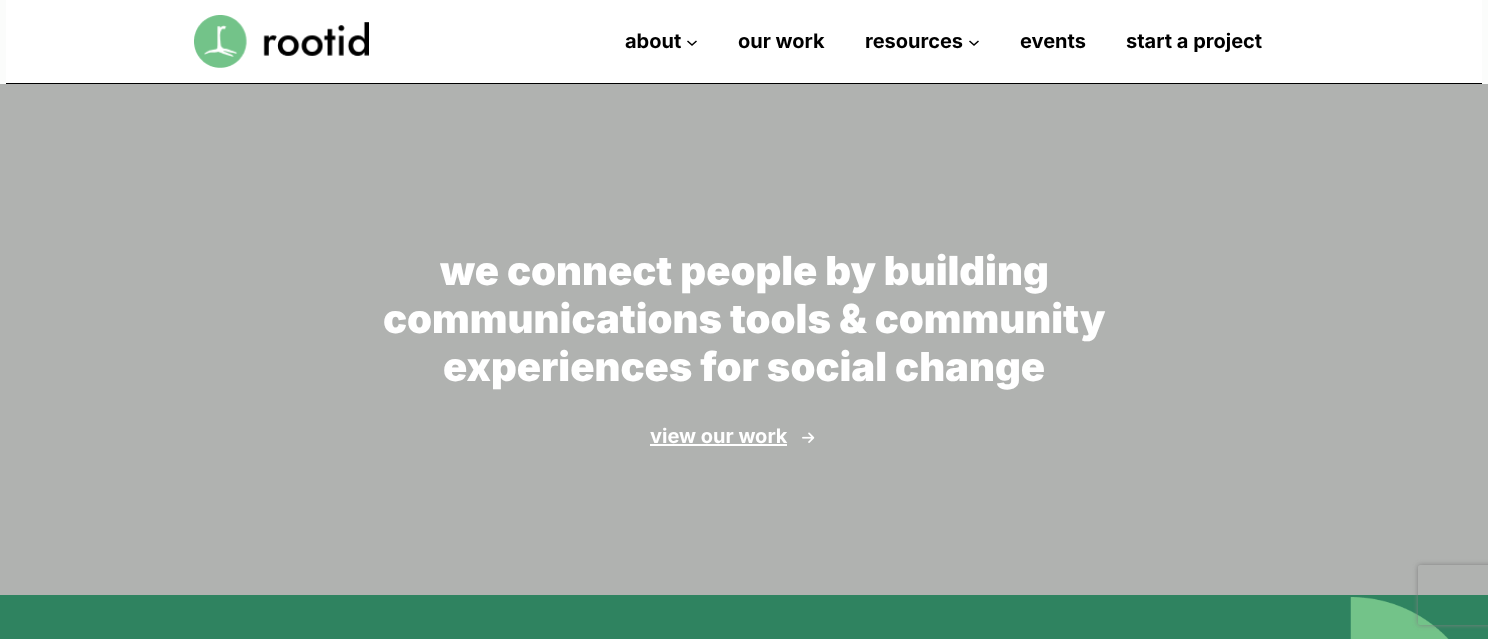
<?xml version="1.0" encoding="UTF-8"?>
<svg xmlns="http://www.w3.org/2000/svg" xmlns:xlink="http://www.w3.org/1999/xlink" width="1488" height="639">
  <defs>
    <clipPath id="clip1"><path d="M 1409 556 h 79 v 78 h -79 z m 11 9 h 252 c 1 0 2 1 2 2 v 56 c 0 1 -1 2 -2 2 h -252 c -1 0 -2 -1 -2 -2 v -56 c 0 -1 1 -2 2 -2 z" clip-rule="evenodd" /></clipPath>
  </defs>
  <rect width="100%" height="100%" fill="#fbfcfb" />
  <rect x="6" width="1476" height="83" fill="#ffffff" />
  <rect x="6" y="83" width="1476" height="1" fill="#000000" />
  <image x="194" y="15" width="175" height="53" xlink:href="image1.png" />
  <path d="M 687.5 41 l 4.5 4 l 4.5 -4" fill="none" stroke="#000000" stroke-width="1.5" />
  <path d="M 969.5 41 l 4.5 4 l 4.5 -4" fill="none" stroke="#000000" stroke-width="1.5" />
  <rect y="84" width="1488" height="511" fill="#b0b2b0" />
  <rect x="650" y="444" width="137" height="2" fill="#ffffff" />
  <image x="802" y="432" width="13" height="11" xlink:href="image2.png" />
  <rect y="595" width="1488" height="44" fill="#2f8360" />
  <image x="1350" y="597" width="99" height="42" xlink:href="image3.png" />
  <g clip-path="url(#clip1)">
    <rect x="1418" y="565" width="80" height="60" rx="2" fill="#808080" filter="blur(2.5px)" />
  </g>
  <text x="625" y="48" style="font-family: Inter; font-size: 20px; font-weight: bold; fill: #000000">about</text>
  <text x="738" y="48" style="font-family: Inter; font-size: 20px; font-weight: bold; fill: #000000">our work</text>
  <text x="865" y="48" style="font-family: Inter; font-size: 20px; font-weight: bold; fill: #000000">resources</text>
  <text x="1020" y="48" style="font-family: Inter; font-size: 20px; font-weight: bold; fill: #000000">events</text>
  <text x="1126" y="48" style="font-family: Inter; font-size: 20px; font-weight: bold; fill: #000000">start a project</text>
  <text x="440" y="285" style="font-family: Inter; font-size: 40px; font-weight: 900; fill: #ffffff">we connect people by building</text>
  <text x="383" y="333" style="font-family: Inter; font-size: 40px; font-weight: 900; fill: #ffffff">communications tools &amp; community</text>
  <text x="443" y="381" style="font-family: Inter; font-size: 40px; font-weight: 900; fill: #ffffff">experiences for social change</text>
  <text x="650" y="443" style="font-family: Inter; font-size: 20px; font-weight: bold; fill: #ffffff">view our work</text>
</svg>
